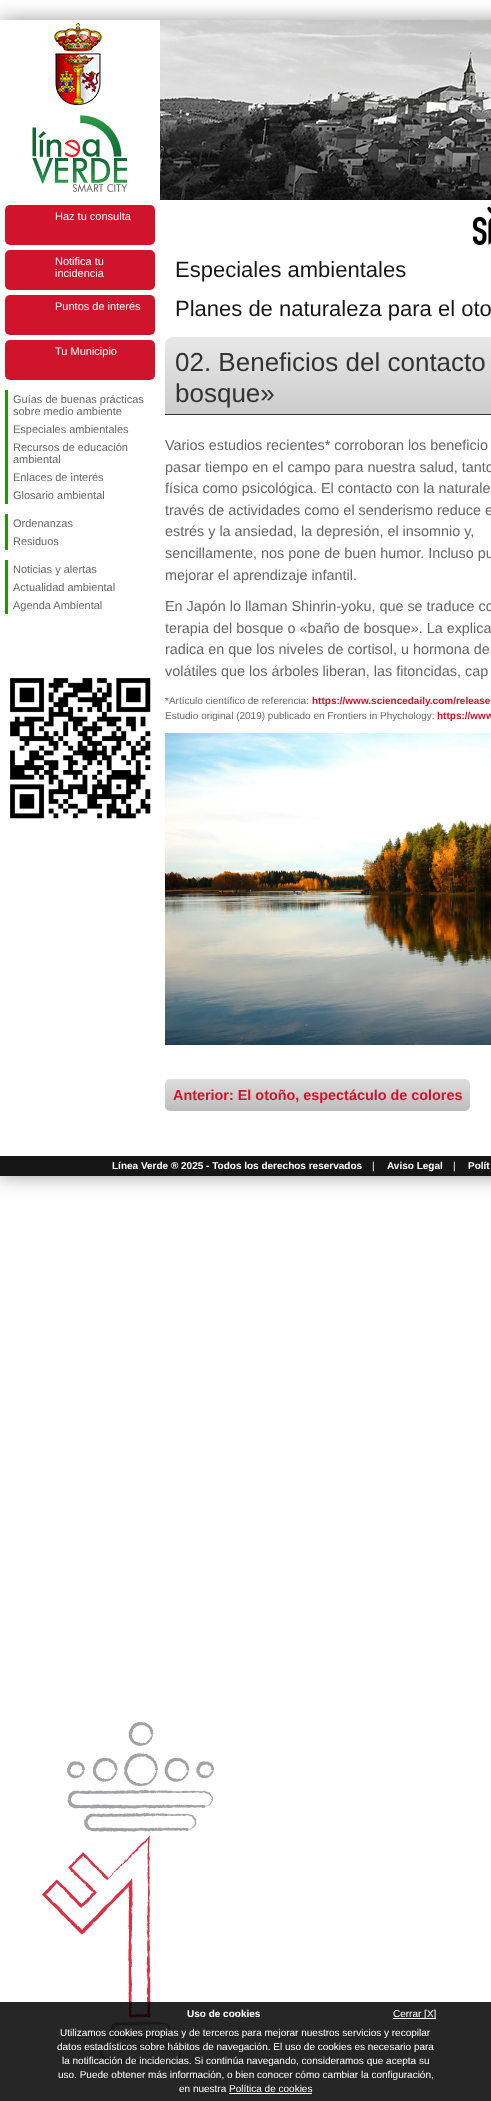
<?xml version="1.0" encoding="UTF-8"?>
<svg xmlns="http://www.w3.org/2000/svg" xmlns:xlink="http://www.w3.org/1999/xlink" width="491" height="2101">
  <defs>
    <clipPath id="clip1"><path d="M 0 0 h 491 v 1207 h -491 z m 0 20 h 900 v 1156 h -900 z" clip-rule="evenodd" /></clipPath>
    <linearGradient id="g1" gradientUnits="userSpaceOnUse" x1="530" y1="337" x2="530" y2="414"><stop offset="0" stop-color="#e8e8e8" /><stop offset="1" stop-color="#cccccc" /></linearGradient>
    <linearGradient id="g2" gradientUnits="userSpaceOnUse" x1="318" y1="1079" x2="318" y2="1111"><stop offset="0" stop-color="#dedede" /><stop offset="1" stop-color="#bcbcbc" /></linearGradient>
  </defs>
  <rect width="100%" height="100%" fill="#ffffff" />
  <image x="42" y="1722" width="172" height="341" xlink:href="image1.png" />
  <g clip-path="url(#clip1)">
    <rect y="20" width="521" height="1156" fill="#000000" fill-opacity="0.4" filter="blur(10px)" />
  </g>
  <image x="54" y="20" width="437" height="90" xlink:href="image2.png" />
  <image x="32" y="115" width="96" height="77" xlink:href="image3.png" />
  <image x="160" y="110" width="331" height="90" xlink:href="image4.png" />
  <image x="473" y="206" width="18" height="39" xlink:href="image5.png" />
  <rect x="5" y="205" width="150" height="40" rx="5" fill="#cf142b" />
  <rect x="5" y="250" width="150" height="40" rx="5" fill="#cf142b" />
  <rect x="5" y="295" width="150" height="40" rx="5" fill="#cf142b" />
  <rect x="5" y="340" width="150" height="40" rx="5" fill="#cf142b" />
  <rect x="5" y="390" width="3" height="114" fill="#259603" />
  <rect x="5" y="514" width="3" height="36" fill="#259603" />
  <rect x="5" y="560" width="3" height="54" fill="#259603" />
  <image x="10" y="678" width="141" height="141" xlink:href="image6.png" />
  <path d="M 173 337 h 318 c 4.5 0 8 3.5 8 8 v 69 h -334 v -69 c 0 -4.5 3.5 -8 8 -8 z" fill="url(#g1)" />
  <rect x="165" y="414" width="326" height="1" fill="#333333" />
  <image x="165" y="733" width="326" height="312" xlink:href="image7.png" />
  <rect x="165" y="1079" width="305" height="32" rx="5" fill="url(#g2)" />
  <rect y="1156" width="491" height="20" fill="#171616" />
  <rect y="2002" width="491" height="99" fill="#000000" fill-opacity="0.85" />
  <rect x="393" y="2018" width="43" height="1" fill="#ffffff" />
  <rect x="229" y="2093" width="83" height="1" fill="#ffffff" />
  <text x="55" y="220" style="font-family: Liberation Sans; font-size: 11px; fill: #ffffff">Haz tu consulta</text>
  <text x="55" y="265" style="font-family: Liberation Sans; font-size: 11px; fill: #ffffff">Notifica tu</text>
  <text x="55" y="277" style="font-family: Liberation Sans; font-size: 11px; fill: #ffffff">incidencia</text>
  <text x="55" y="310" style="font-family: Liberation Sans; font-size: 11px; fill: #ffffff">Puntos de interés</text>
  <text x="55" y="355" style="font-family: Liberation Sans; font-size: 11px; fill: #ffffff">Tu Municipio</text>
  <text x="13" y="403" style="font-family: Liberation Sans; font-size: 11px; fill: #666666">Guías de buenas prácticas</text>
  <text x="13" y="415" style="font-family: Liberation Sans; font-size: 11px; fill: #666666">sobre medio ambiente</text>
  <text x="13" y="433" style="font-family: Liberation Sans; font-size: 11px; fill: #666666">Especiales ambientales</text>
  <text x="13" y="451" style="font-family: Liberation Sans; font-size: 11px; fill: #666666">Recursos de educación</text>
  <text x="13" y="463" style="font-family: Liberation Sans; font-size: 11px; fill: #666666">ambiental</text>
  <text x="13" y="481" style="font-family: Liberation Sans; font-size: 11px; fill: #666666">Enlaces de interés</text>
  <text x="13" y="499" style="font-family: Liberation Sans; font-size: 11px; fill: #666666">Glosario ambiental</text>
  <text x="13" y="527" style="font-family: Liberation Sans; font-size: 11px; fill: #666666">Ordenanzas</text>
  <text x="13" y="545" style="font-family: Liberation Sans; font-size: 11px; fill: #666666">Residuos</text>
  <text x="13" y="573" style="font-family: Liberation Sans; font-size: 11px; fill: #666666">Noticias y alertas</text>
  <text x="13" y="591" style="font-family: Liberation Sans; font-size: 11px; fill: #666666">Actualidad ambiental</text>
  <text x="13" y="609" style="font-family: Liberation Sans; font-size: 11px; fill: #666666">Agenda Ambiental</text>
  <text x="175" y="277" style="font-family: Liberation Sans; font-size: 22px; fill: #171616">Especiales ambientales</text>
  <text x="175" y="316" style="font-family: Liberation Sans; font-size: 22px; fill: #171616">Planes de naturaleza para el oto</text>
  <text x="175" y="371" style="font-family: Liberation Sans; font-size: 26px; fill: #333333">02. Beneficios del contacto</text>
  <text x="175" y="402" style="font-family: Liberation Sans; font-size: 26px; fill: #333333">bosque»</text>
  <text x="165" y="450" style="font-family: Liberation Sans; font-size: 14.4px; fill: #666666">Varios estudios recientes* corroboran los beneficio</text>
  <text x="165" y="472" style="font-family: Liberation Sans; font-size: 14.4px; fill: #666666">pasar tiempo en el campo para nuestra salud, tanto</text>
  <text x="165" y="493" style="font-family: Liberation Sans; font-size: 14.4px; fill: #666666">física como psicológica. El contacto con la naturale</text>
  <text x="165" y="515" style="font-family: Liberation Sans; font-size: 14.4px; fill: #666666">través de actividades como el senderismo reduce e</text>
  <text x="165" y="536" style="font-family: Liberation Sans; font-size: 14.4px; fill: #666666">estrés y la ansiedad, la depresión, el insomnio y,</text>
  <text x="165" y="558" style="font-family: Liberation Sans; font-size: 14.4px; fill: #666666">sencillamente, nos pone de buen humor. Incluso pu</text>
  <text x="165" y="580" style="font-family: Liberation Sans; font-size: 14.4px; fill: #666666">mejorar el aprendizaje infantil.</text>
  <text x="165" y="611" style="font-family: Liberation Sans; font-size: 14.4px; fill: #666666">En Japón lo llaman Shinrin-yoku, que se traduce co</text>
  <text x="165" y="633" style="font-family: Liberation Sans; font-size: 14.4px; fill: #666666">terapia del bosque o «baño de bosque». La explica</text>
  <text x="165" y="654" style="font-family: Liberation Sans; font-size: 14.4px; fill: #666666">radica en que los niveles de cortisol, u hormona de</text>
  <text x="165" y="676" style="font-family: Liberation Sans; font-size: 14.4px; fill: #666666">volátiles que los árboles liberan, las fitoncidas, cap</text>
  <text x="165" y="704" style="font-family: Liberation Sans; font-size: 10px; fill: #666666">*Artículo científico de referencia:</text>
  <text x="312" y="704" style="font-family: Liberation Sans; font-size: 10px; font-weight: bold; fill: #cf142b">https://www.sciencedaily.com/release</text>
  <text x="165" y="719" style="font-family: Liberation Sans; font-size: 10px; fill: #666666">Estudio original (2019) publicado en Frontiers in Phychology:</text>
  <text x="437" y="719" style="font-family: Liberation Sans; font-size: 10px; font-weight: bold; fill: #cf142b">https://www</text>
  <text x="173" y="1100" style="font-family: Liberation Sans; font-size: 14.4px; font-weight: bold; fill: #cf142b">Anterior: El otoño, espectáculo de colores</text>
  <text x="112" y="1169" style="font-family: Liberation Sans; font-size: 10px; font-weight: bold; fill: #ffffff">Línea Verde ® 2025 - Todos los derechos reservados</text>
  <text x="372" y="1169" style="font-family: Liberation Sans; font-size: 10px; fill: #ffffff">|</text>
  <text x="387" y="1169" style="font-family: Liberation Sans; font-size: 10px; font-weight: bold; fill: #ffffff">Aviso Legal</text>
  <text x="453" y="1169" style="font-family: Liberation Sans; font-size: 10px; fill: #ffffff">|</text>
  <text x="468" y="1169" style="font-family: Liberation Sans; font-size: 10px; font-weight: bold; fill: #ffffff">Polít</text>
  <text x="187" y="2017" style="font-family: Liberation Sans; font-size: 10px; font-weight: bold; fill: #ffffff">Uso de cookies</text>
  <text x="393" y="2017" style="font-family: Liberation Sans; font-size: 10px; fill: #ffffff">Cerrar [X]</text>
  <text x="60" y="2036" style="font-family: Liberation Sans; font-size: 10px; fill: #ffffff">Utilizamos cookies propias y de terceros para mejorar nuestros servicios y recopilar</text>
  <text x="57" y="2050" style="font-family: Liberation Sans; font-size: 10px; fill: #ffffff">datos estadísticos sobre hábitos de navegación. El uso de cookies es necesario para</text>
  <text x="62" y="2064" style="font-family: Liberation Sans; font-size: 10px; fill: #ffffff">la notificación de incidencias. Si continúa navegando, consideramos que acepta su</text>
  <text x="58" y="2078" style="font-family: Liberation Sans; font-size: 10px; fill: #ffffff">uso. Puede obtener más información, o bien conocer cómo cambiar la configuración,</text>
  <text x="179" y="2092" style="font-family: Liberation Sans; font-size: 10px; fill: #ffffff">en nuestra Política de cookies</text>
</svg>
